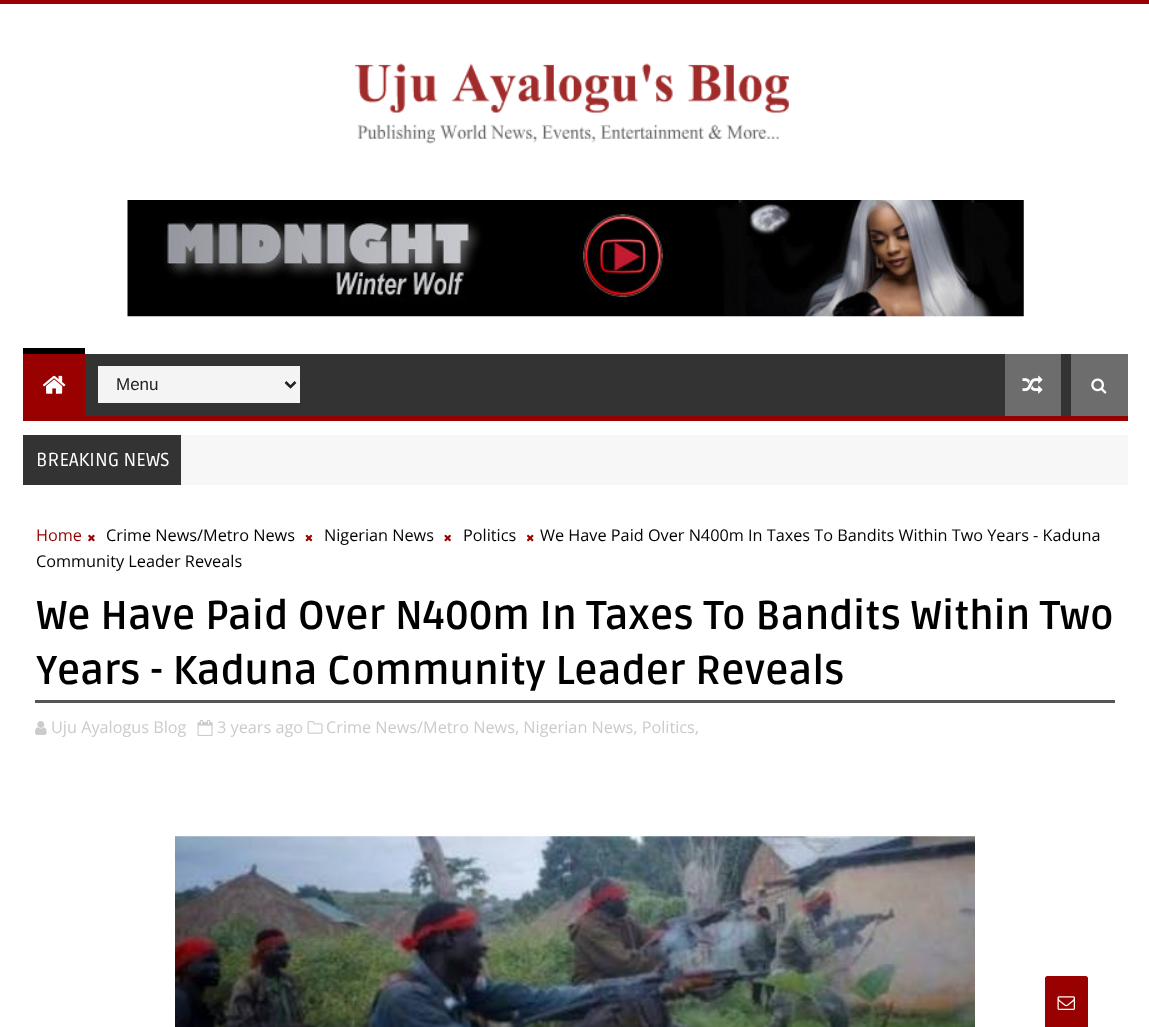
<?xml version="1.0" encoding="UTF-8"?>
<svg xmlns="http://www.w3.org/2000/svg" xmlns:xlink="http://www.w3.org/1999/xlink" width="1149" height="1027">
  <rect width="100%" height="100%" fill="#ffffff" />
  <rect width="1149" height="4" fill="#990000" />
  <image x="354" y="63" width="435" height="81" xlink:href="image1.png" />
  <image x="127" y="200" width="897" height="117" xlink:href="image2.png" />
  <rect x="85" y="354" width="986" height="62" fill="#333333" />
  <rect x="23" y="416" width="1105" height="5" fill="#990000" />
  <rect x="23" y="354" width="62" height="62" fill="#990000" />
  <rect x="23" y="348" width="62" height="6" fill="#000000" />
  <image x="42" y="375" width="24" height="19" xlink:href="image3.png" />
  <rect x="98" y="366" width="202" height="37" fill="#f4f4f4" />
  <path d="M 285.5 382 l 5 5 l 5 -5" fill="none" stroke="#222222" stroke-width="2.5" />
  <rect x="1005" y="354" width="56" height="62" fill="#6d6d6d" />
  <image x="1022" y="375" width="21" height="19" xlink:href="image4.png" />
  <rect x="1071" y="354" width="57" height="62" fill="#6d6d6d" />
  <image x="1091" y="378" width="16" height="16" xlink:href="image5.png" />
  <rect x="181" y="435" width="947" height="50" fill="#f7f7f7" />
  <rect x="23" y="435" width="158" height="50" fill="#333333" />
  <image x="88" y="534" width="7" height="8" xlink:href="image6.png" />
  <image x="305" y="534" width="8" height="8" xlink:href="image7.png" />
  <image x="444" y="534" width="7" height="8" xlink:href="image8.png" />
  <image x="526" y="534" width="8" height="8" xlink:href="image9.png" />
  <rect x="35" y="700" width="1080" height="3" fill="#555555" />
  <image x="35" y="721" width="12" height="14" xlink:href="image10.png" />
  <image x="197" y="719" width="16" height="17" xlink:href="image11.png" />
  <image x="307" y="721" width="16" height="13" xlink:href="image12.png" />
  <image x="175" y="836" width="800" height="191" xlink:href="image13.png" />
  <path d="M 1047.5 976 h 38 c 1.5 0 2.5 1 2.5 2.5 v 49.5 h -43 v -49.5 c 0 -1.5 1 -2.5 2.5 -2.5 z" fill="#990000" />
  <image x="1057" y="996" width="18" height="14" xlink:href="image14.png" />
  <text x="116" y="390" style="font-family: Liberation Sans; font-size: 17px; fill: #222222">Menu</text>
  <text x="36" y="466" style="font-family: Ruda; font-size: 18.75px; fill: #ffffff">BREAKING NEWS</text>
  <text x="36" y="541" style="font-family: Open Sans; font-size: 16.25px; fill: #990000">Home</text>
  <text x="106" y="541" style="font-family: Open Sans; font-size: 16.25px; fill: #000000">Crime News/Metro News</text>
  <text x="324" y="541" style="font-family: Open Sans; font-size: 16.25px; fill: #000000">Nigerian News</text>
  <text x="463" y="541" style="font-family: Open Sans; font-size: 16.25px; fill: #000000">Politics</text>
  <text x="540" y="541" style="font-family: Open Sans; font-size: 16.25px; fill: #000000">We Have Paid Over N400m In Taxes To Bandits Within Two Years - Kaduna</text>
  <text x="36" y="567" style="font-family: Open Sans; font-size: 16.25px; fill: #000000">Community Leader Reveals</text>
  <text x="36" y="629" style="font-family: Ruda; font-size: 40px; font-weight: bold; fill: #000000">We Have Paid Over N400m In Taxes To Bandits Within Two</text>
  <text x="36" y="684" style="font-family: Ruda; font-size: 40px; font-weight: bold; fill: #000000">Years - Kaduna Community Leader Reveals</text>
  <text x="51" y="733" style="font-family: Open Sans; font-size: 16.25px; fill: #cbcbcb">Uju Ayalogus Blog</text>
  <text x="217" y="733" style="font-family: Open Sans; font-size: 16.25px; fill: #cbcbcb">3 years ago</text>
  <text x="326" y="733" style="font-family: Open Sans; font-size: 16.25px; fill: #cbcbcb">Crime News/Metro News, Nigerian News, Politics,</text>
</svg>
